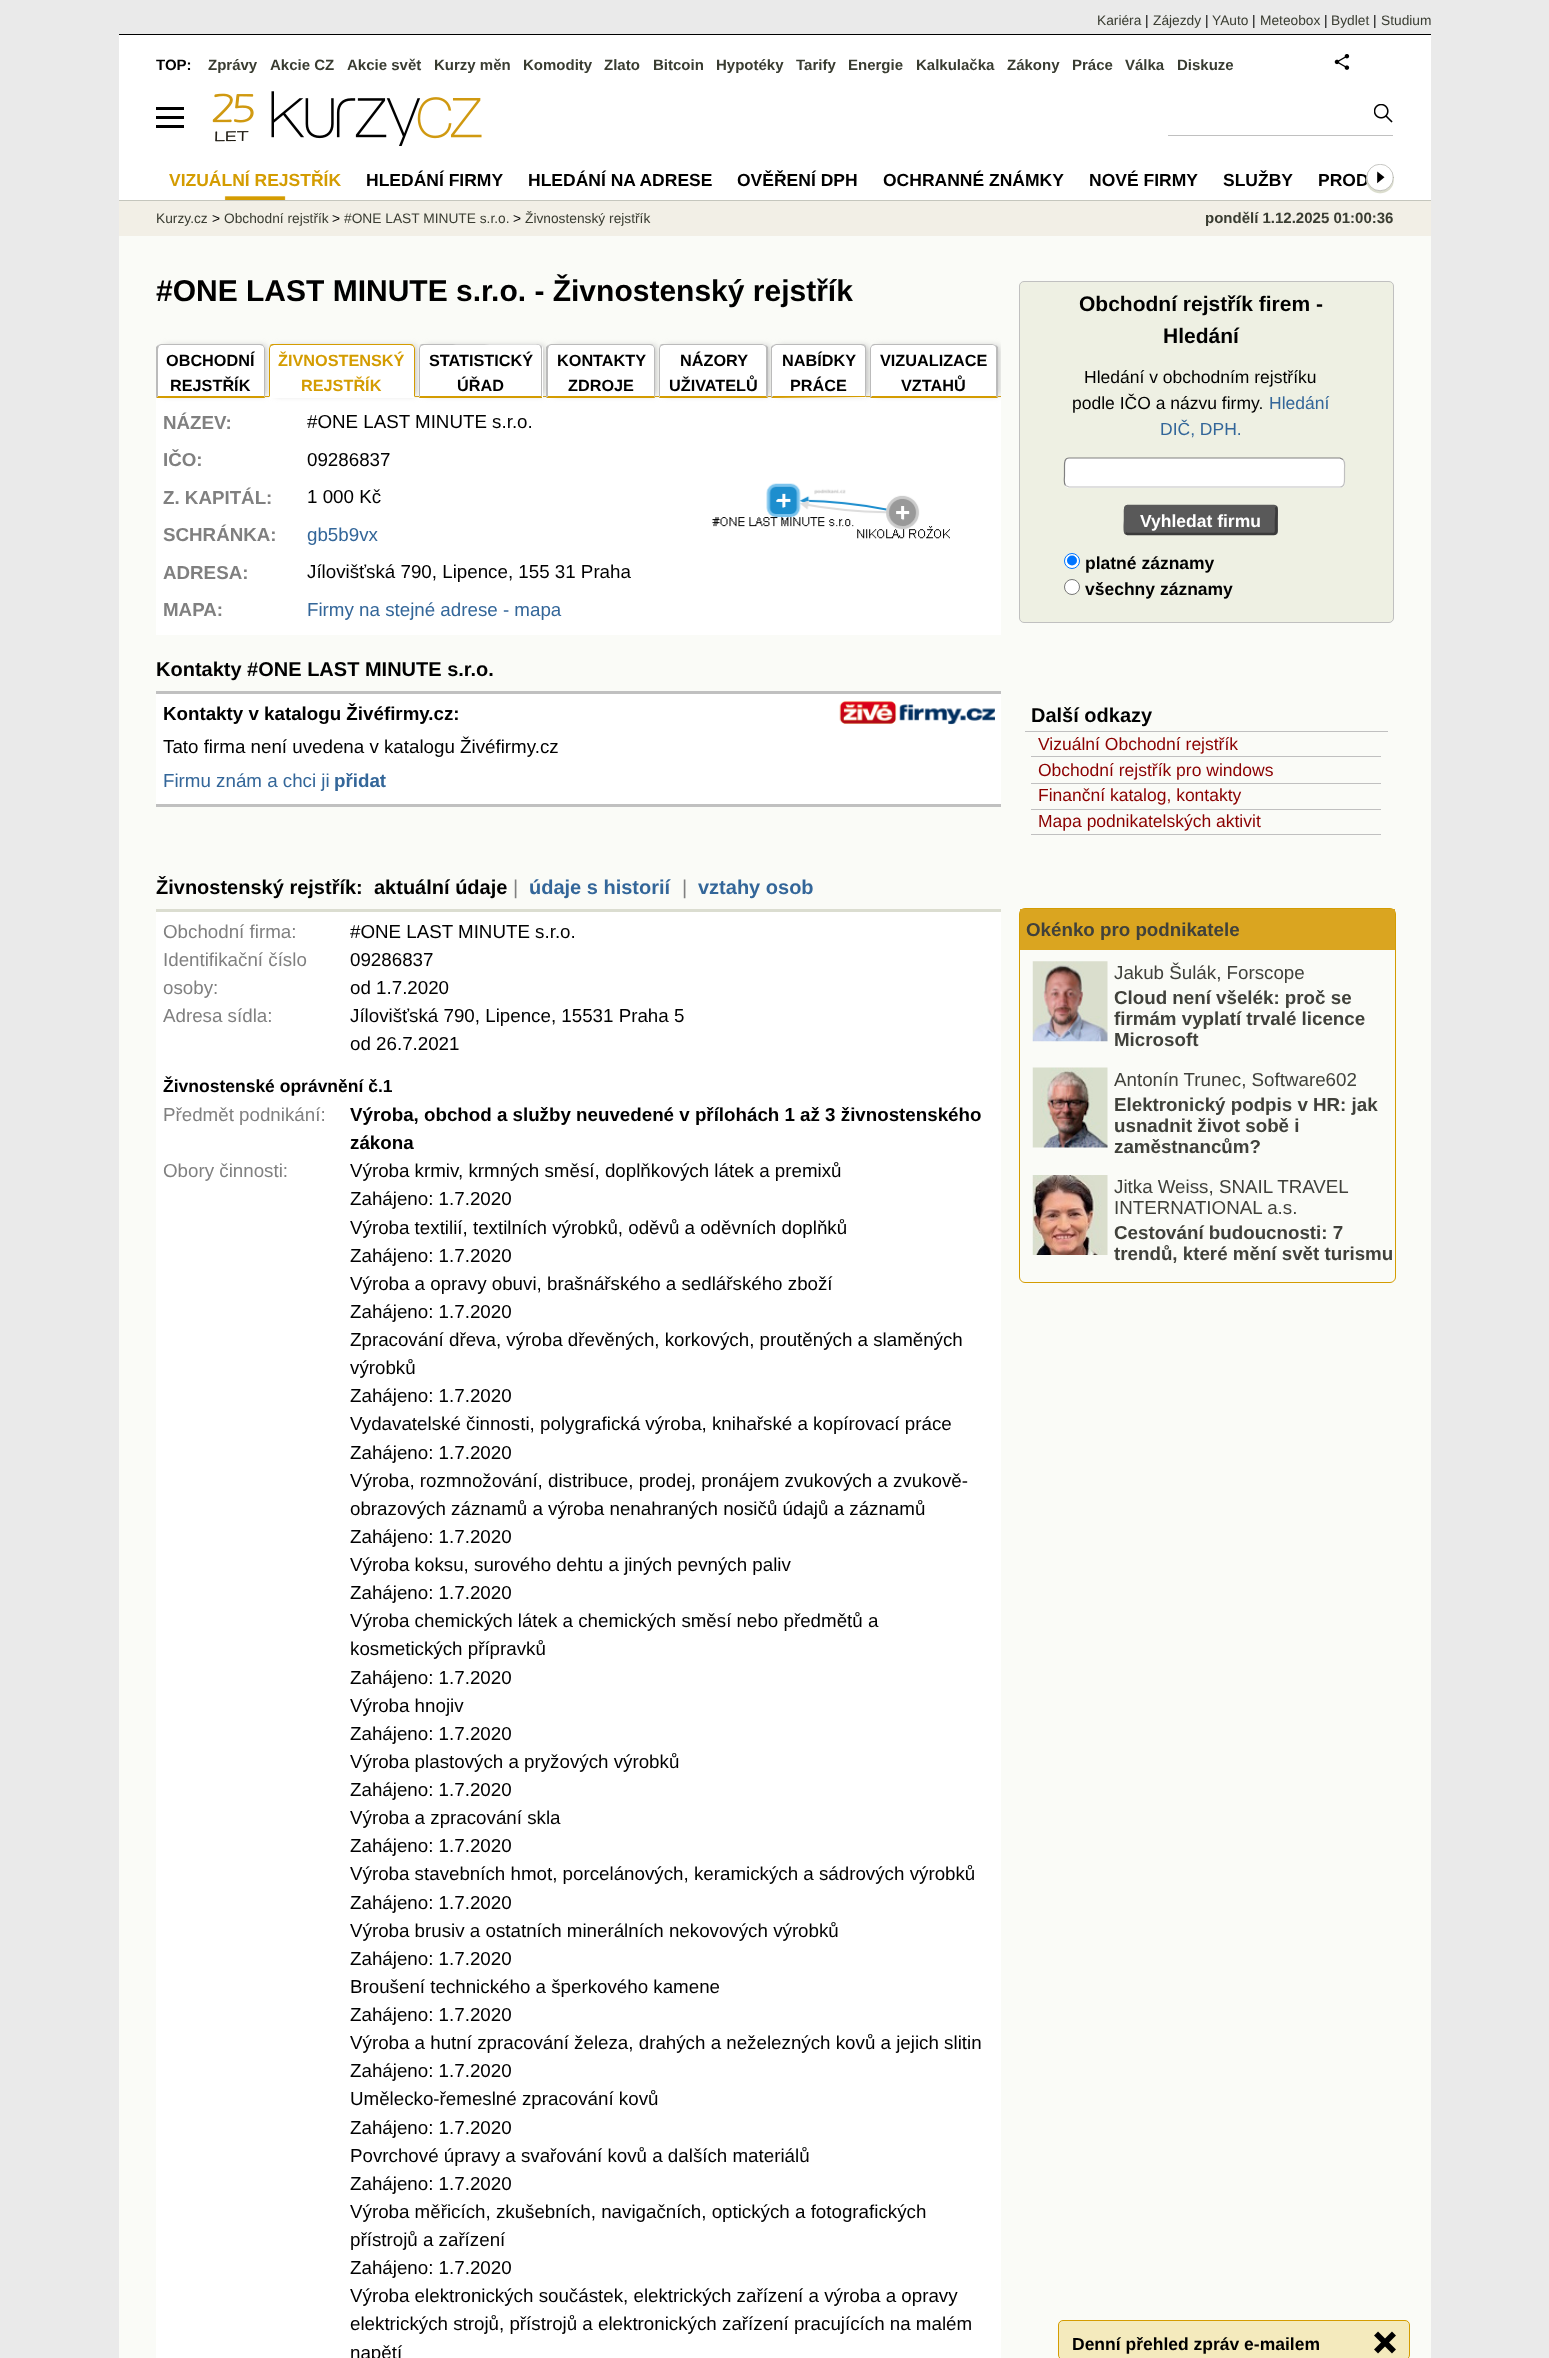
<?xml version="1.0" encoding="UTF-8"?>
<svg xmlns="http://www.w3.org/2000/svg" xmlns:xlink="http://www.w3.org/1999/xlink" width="1549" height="2358">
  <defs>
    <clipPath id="clip1"><rect x="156" y="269" width="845" height="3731" /></clipPath>
  </defs>
  <rect width="100%" height="100%" fill="#eaeaea" />
  <rect x="119" y="236" width="1312" height="2122" fill="#fafbf7" />
  <rect x="119" y="34" width="1312" height="1" fill="#000000" />
  <rect x="119" y="35" width="1312" height="165" fill="#ffffff" />
  <rect x="156" y="107" width="28" height="3" fill="#000000" />
  <image x="212" y="91" width="270" height="55" xlink:href="image1.png" />
  <rect x="1168" y="135" width="225" height="1" fill="#c0c0c0" />
  <image x="1374" y="104" width="19" height="19" xlink:href="image2.png" />
  <rect x="156" y="116" width="28" height="3" fill="#000000" />
  <rect x="156" y="125" width="28" height="3" fill="#000000" />
  <image x="1334" y="54" width="16" height="16" xlink:href="image3.png" />
  <rect x="119" y="201" width="1312" height="35" fill="#f2efe6" />
  <rect x="265" y="396" width="736" height="1" fill="#d49c01" />
  <rect x="156" y="398" width="845" height="237" fill="#ffffff" />
  <rect x="163" y="346" width="103" height="49" rx="2.5" fill="#bbbbbb" filter="blur(3px)" />
  <path d="M 161 344 h 99 c 3 0 5 2 5 5 v 49 h -109 v -49 c 0 -3 2 -5 5 -5 z" fill="#ffffff" />
  <path d="M 161 344 l -3 1 l 1 1 l 2 -1 h 99 l 3 1 v -1 c 0 -1 -2 -1 -3 -1 z" fill="#bbbbbb" />
  <path d="M 263 345 c 1 1 2 2 2 4 v 49 l -1 -2 v -48 l -1 -2 z" fill="#bbbbbb" />
  <path d="M 265 398 l -1 -2 h -106 l -2 2 z" fill="#d49c01" />
  <path d="M 156 398 l 2 -2 v -47 l 1 -3 l -1 -1 l -2 2 z" fill="#bbbbbb" />
  <rect x="275" y="346" width="141" height="49" rx="2.5" fill="#bbbbbb" filter="blur(3px)" />
  <path d="M 274 344 h 136 c 3 0 5 2 5 5 v 49 h -146 v -49 c 0 -3 2 -5 5 -5 z" fill="#ffffff" />
  <path d="M 274 344 c -2 0 -3 0 -4 1 l 1 1 l 3 -1 h 136 l 3 1 v -1 c 0 -1 -2 -1 -3 -1 z" fill="#d49c01" />
  <path d="M 413 345 c 1 1 2 2 2 4 v 49 l -1 -2 v -48 l -1 -2 z" fill="#d49c01" />
  <path d="M 415 398 h -146 l 1 -2 h 144 z" fill="#ffffff" />
  <path d="M 270 345 c 0 1 -1 3 -1 4 v 48 l 1 -1 v -48 l 1 -2 z" fill="#d49c01" />
  <rect x="425" y="346" width="119" height="49" rx="2.5" fill="#bbbbbb" filter="blur(3px)" />
  <path d="M 424 344 h 114 c 3 0 5 2 5 5 v 49 h -124 v -49 c 0 -3 2 -5 5 -5 z" fill="#ffffff" />
  <path d="M 424 344 c -2 0 -3 0 -4 1 l 1 1 l 3 -1 h 19 c 10 0 95 -1 96 0 l 1 1 l 1 -1 c -1 0 -2 -1 -3 -1 z" fill="#bbbbbb" />
  <path d="M 542 397 v -48 c 0 -1 0 -3 -1 -4 l -1 1 l 1 3 v 47 z" fill="#bbbbbb" />
  <path d="M 419 398 l 1 -2 h 121 l 1 1 v 1 z" fill="#d49c01" />
  <path d="M 420 345 c 0 1 -1 3 -1 4 v 48 l 1 -1 v -48 l 1 -2 z" fill="#bbbbbb" />
  <rect x="553" y="346" width="103" height="49" rx="2.5" fill="#bbbbbb" filter="blur(3px)" />
  <path d="M 551 344 h 99 c 3 0 5 2 5 5 v 49 h -109 v -49 c 0 -3 2 -5 5 -5 z" fill="#ffffff" />
  <path d="M 551 344 l -3 1 l 1 1 l 2 -1 h 99 l 3 1 v -1 c 0 -1 -2 -1 -3 -1 z" fill="#bbbbbb" />
  <path d="M 653 345 c 1 1 2 2 2 4 v 49 l -1 -2 v -48 l -1 -2 z" fill="#bbbbbb" />
  <path d="M 655 398 l -1 -2 h -106 l -2 2 z" fill="#d49c01" />
  <path d="M 546 398 l 2 -2 v -47 l 1 -3 l -1 -1 l -2 2 z" fill="#bbbbbb" />
  <rect x="665" y="346" width="104" height="49" rx="2.5" fill="#bbbbbb" filter="blur(3px)" />
  <path d="M 664 344 h 99 c 3 0 5 2 5 5 v 49 h -109 v -49 c 0 -3 2 -5 5 -5 z" fill="#ffffff" />
  <path d="M 664 344 c -2 0 -3 0 -4 1 l 1 1 l 3 -1 h 98 c 1 0 2 0 3 1 l 1 -1 l -4 -1 z" fill="#bbbbbb" />
  <path d="M 766 345 l 2 2 v 51 l -2 -2 v -47 c 0 -1 0 -2 -1 -3 z" fill="#bbbbbb" />
  <path d="M 768 398 h -109 l 1 -2 h 106 z" fill="#d49c01" />
  <path d="M 660 345 c 0 1 -1 3 -1 4 v 48 l 1 -1 v -48 l 1 -2 z" fill="#bbbbbb" />
  <rect x="778" y="346" width="90" height="49" rx="2.5" fill="#bbbbbb" filter="blur(3px)" />
  <path d="M 776 344 h 85 c 3 0 5 2 5 5 v 49 h -95 v -49 c 0 -3 2 -5 5 -5 z" fill="#ffffff" />
  <path d="M 776 344 l -3 1 l 1 1 l 2 -1 h 85 l 3 1 l 1 -1 c -1 -1 -3 -1 -4 -1 z" fill="#bbbbbb" />
  <path d="M 866 397 v -48 c 0 -1 0 -3 -1 -4 l -1 1 l 1 2 v 48 z" fill="#bbbbbb" />
  <path d="M 866 397 l -95 1 l 2 -2 h 92 z" fill="#d49c01" />
  <path d="M 771 398 l 2 -2 h -1 v -48 l 2 -2 l -1 -1 l -2 2 z" fill="#bbbbbb" />
  <g clip-path="url(#clip1)">
    <rect x="876" y="346" width="123" height="49" rx="2.5" fill="#bbbbbb" filter="blur(3px)" />
  </g>
  <path d="M 875 344 h 118 c 3 0 5 2 5 5 v 49 h -128 v -49 c 0 -3 2 -5 5 -5 z" fill="#ffffff" />
  <path d="M 875 344 c -1 0 -3 0 -3 1 v 1 l 3 -1 h 117 c 1 0 2 0 3 1 l 1 -1 l -4 -1 z" fill="#bbbbbb" />
  <path d="M 996 345 l 2 2 v 51 l -2 -2 v -47 c 0 -1 0 -2 -1 -3 z" fill="#bbbbbb" />
  <path d="M 998 398 l -2 -2 h -124 l -2 2 z" fill="#d49c01" />
  <path d="M 870 398 l 2 -2 h -1 v -48 l 1 -2 v -1 c -1 1 -2 2 -2 4 z" fill="#bbbbbb" />
  <image x="712" y="483" width="238" height="56" xlink:href="image4.png" />
  <rect x="156" y="694" width="845" height="110" fill="#ffffff" />
  <rect x="156" y="691" width="845" height="3" fill="#c0c0c0" />
  <rect x="156" y="804" width="845" height="3" fill="#c0c0c0" />
  <image x="839" y="701" width="156" height="24" xlink:href="image5.png" />
  <rect x="156" y="912" width="845" height="1446" fill="#ffffff" />
  <rect x="156" y="909" width="845" height="3" fill="#dbddd0" />
  <rect x="1019.5" y="281.5" width="374" height="341" rx="4.5" fill="#eef0e3" stroke="#c0c0c0" />
  <rect x="1064" y="458" width="281" height="30" rx="5" fill="#ffffff" />
  <path d="M 1343 459.5 c 2.5 2.5 1.5 7 1.5 9.5 v 10 c 0 3.5 0 8 -4.5 8 h -271 l -3.5 -1.5" fill="none" stroke="#c0c0c0" stroke-width="1.2" />
  <path d="M 1065.5 485.5 c -2 -2.5 -1 -7 -1 -9.5 v -10 c 0 -3.5 0 -8 4.5 -8 h 271 l 3 1.5" fill="none" stroke="#808080" stroke-width="1.2" />
  <rect x="1124" y="505" width="154" height="30" rx="4" fill="#595959" />
  <path d="M 1275.5 507 c 2 1.5 0.5 10.5 0.5 13 v 7.5 c 0 2 1 6 -2 6.5 h -146.5 l -2 -1" fill="none" stroke="#3b3b3b" stroke-width="2.5" />
  <path d="M 1125.5 533 c -1.5 -1.5 -0.5 -10.5 -0.5 -13 v -7.5 c 0 -2 -0.5 -6 2.5 -6.5 h 146.5 l 1.5 1" fill="none" stroke="#595959" stroke-width="2.5" />
  <circle cx="1072" cy="561" r="7.5" fill="#ffffff" stroke="#0075ff" />
  <circle cx="1072" cy="560.5" r="5" fill="#0075ff" />
  <circle cx="1072" cy="587" r="7.5" fill="#ffffff" stroke="#767676" />
  <rect x="1025" y="731" width="363" height="1" fill="#c0c0c0" />
  <rect x="1031" y="756" width="350" height="1" fill="#c0c0c0" />
  <rect x="1031" y="783" width="350" height="1" fill="#c0c0c0" />
  <rect x="1031" y="809" width="350" height="1" fill="#c0c0c0" />
  <rect x="1031" y="834" width="350" height="1" fill="#c0c0c0" />
  <rect x="1019.5" y="908.5" width="376" height="374" rx="5.5" fill="none" stroke="#d49c01" />
  <rect x="1020" y="909" width="375" height="41" fill="#daa520" />
  <image x="1032" y="961" width="76" height="81" xlink:href="image6.png" />
  <image x="1032" y="1067" width="76" height="81" xlink:href="image7.png" />
  <image x="1032" y="1175" width="76" height="80" xlink:href="image8.png" />
  <rect x="119" y="200" width="1312" height="1" fill="#c5c6bd" />
  <image x="224" y="196" width="62" height="4" xlink:href="image9.png" />
  <rect x="1058.5" y="2320.5" width="351" height="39" rx="4.5" fill="#f4eabd" stroke="#d49c01" />
  <image x="1374" y="2331" width="22" height="23" xlink:href="image11.png" />
  <text x="1097" y="25" style="font-family: Liberation Sans; font-size: 13.75px; fill: #393c31">Kariéra</text>
  <text x="1145" y="25" style="font-family: Liberation Sans; font-size: 13.75px; fill: #000000">|</text>
  <text x="1153" y="25" style="font-family: Liberation Sans; font-size: 13.75px; fill: #393c31">Zájezdy</text>
  <text x="1205" y="25" style="font-family: Liberation Sans; font-size: 13.75px; fill: #000000">|</text>
  <text x="1212" y="25" style="font-family: Liberation Sans; font-size: 13.75px; fill: #393c31">YAuto</text>
  <text x="1252" y="25" style="font-family: Liberation Sans; font-size: 13.75px; fill: #000000">|</text>
  <text x="1260" y="25" style="font-family: Liberation Sans; font-size: 13.75px; fill: #393c31">Meteobox</text>
  <text x="1324" y="25" style="font-family: Liberation Sans; font-size: 13.75px; fill: #000000">|</text>
  <text x="1331" y="25" style="font-family: Liberation Sans; font-size: 13.75px; fill: #393c31">Bydlet</text>
  <text x="1373" y="25" style="font-family: Liberation Sans; font-size: 13.75px; fill: #000000">|</text>
  <text x="1381" y="25" style="font-family: Liberation Sans; font-size: 13.75px; fill: #393c31">Studium</text>
  <text x="156" y="70" style="font-family: Liberation Sans; font-size: 15px; font-weight: bold; fill: #000000">TOP:</text>
  <text x="208" y="70" style="font-family: Liberation Sans; font-size: 15px; font-weight: bold; fill: #393c31">Zprávy</text>
  <text x="270" y="70" style="font-family: Liberation Sans; font-size: 15px; font-weight: bold; fill: #393c31">Akcie CZ</text>
  <text x="347" y="70" style="font-family: Liberation Sans; font-size: 15px; font-weight: bold; fill: #393c31">Akcie svět</text>
  <text x="434" y="70" style="font-family: Liberation Sans; font-size: 15px; font-weight: bold; fill: #393c31">Kurzy měn</text>
  <text x="523" y="70" style="font-family: Liberation Sans; font-size: 15px; font-weight: bold; fill: #393c31">Komodity</text>
  <text x="604" y="70" style="font-family: Liberation Sans; font-size: 15px; font-weight: bold; fill: #393c31">Zlato</text>
  <text x="653" y="70" style="font-family: Liberation Sans; font-size: 15px; font-weight: bold; fill: #393c31">Bitcoin</text>
  <text x="716" y="70" style="font-family: Liberation Sans; font-size: 15px; font-weight: bold; fill: #393c31">Hypotéky</text>
  <text x="796" y="70" style="font-family: Liberation Sans; font-size: 15px; font-weight: bold; fill: #393c31">Tarify</text>
  <text x="848" y="70" style="font-family: Liberation Sans; font-size: 15px; font-weight: bold; fill: #393c31">Energie</text>
  <text x="916" y="70" style="font-family: Liberation Sans; font-size: 15px; font-weight: bold; fill: #393c31">Kalkulačka</text>
  <text x="1007" y="70" style="font-family: Liberation Sans; font-size: 15px; font-weight: bold; fill: #393c31">Zákony</text>
  <text x="1072" y="70" style="font-family: Liberation Sans; font-size: 15px; font-weight: bold; fill: #393c31">Práce</text>
  <text x="1125" y="70" style="font-family: Liberation Sans; font-size: 15px; font-weight: bold; fill: #393c31">Válka</text>
  <text x="1177" y="70" style="font-family: Liberation Sans; font-size: 15px; font-weight: bold; fill: #393c31">Diskuze</text>
  <text x="156" y="223" style="font-family: Liberation Sans; font-size: 13.75px; fill: #393c31">Kurzy.cz</text>
  <text x="212" y="223" style="font-family: Liberation Sans; font-size: 13.75px; fill: #000000">&gt;</text>
  <text x="224" y="223" style="font-family: Liberation Sans; font-size: 13.75px; fill: #393c31">Obchodní rejstřík</text>
  <text x="332" y="223" style="font-family: Liberation Sans; font-size: 13.75px; fill: #000000">&gt;</text>
  <text x="344" y="223" style="font-family: Liberation Sans; font-size: 13.75px; fill: #393c31">#ONE LAST MINUTE s.r.o.</text>
  <text x="513" y="223" style="font-family: Liberation Sans; font-size: 13.75px; fill: #000000">&gt;</text>
  <text x="525" y="223" style="font-family: Liberation Sans; font-size: 13.75px; fill: #393c31">Živnostenský rejstřík</text>
  <text x="1205" y="223" style="font-family: Liberation Sans; font-size: 15px; font-weight: bold; fill: #393c31">pondělí 1.12.2025 01:00:36</text>
  <text x="156" y="301" style="font-family: Liberation Sans; font-size: 30px; font-weight: bold; fill: #000000">#ONE LAST MINUTE s.r.o. - Živnostenský rejstřík</text>
  <text x="166" y="366" style="font-family: Liberation Sans; font-size: 16.25px; font-weight: bold; fill: #000000">OBCHODNÍ</text>
  <text x="170" y="391" style="font-family: Liberation Sans; font-size: 16.25px; font-weight: bold; fill: #000000">REJSTŘÍK</text>
  <text x="278" y="366" style="font-family: Liberation Sans; font-size: 16.25px; font-weight: bold; fill: #d49c01">ŽIVNOSTENSKÝ</text>
  <text x="301" y="391" style="font-family: Liberation Sans; font-size: 16.25px; font-weight: bold; fill: #d49c01">REJSTŘÍK</text>
  <text x="429" y="366" style="font-family: Liberation Sans; font-size: 16.25px; font-weight: bold; fill: #000000">STATISTICKÝ</text>
  <text x="457" y="391" style="font-family: Liberation Sans; font-size: 16.25px; font-weight: bold; fill: #000000">ÚŘAD</text>
  <text x="557" y="366" style="font-family: Liberation Sans; font-size: 16.25px; font-weight: bold; fill: #000000">KONTAKTY</text>
  <text x="568" y="391" style="font-family: Liberation Sans; font-size: 16.25px; font-weight: bold; fill: #000000">ZDROJE</text>
  <text x="680" y="366" style="font-family: Liberation Sans; font-size: 16.25px; font-weight: bold; fill: #000000">NÁZORY</text>
  <text x="669" y="391" style="font-family: Liberation Sans; font-size: 16.25px; font-weight: bold; fill: #000000">UŽIVATELŮ</text>
  <text x="782" y="366" style="font-family: Liberation Sans; font-size: 16.25px; font-weight: bold; fill: #000000">NABÍDKY</text>
  <text x="790" y="391" style="font-family: Liberation Sans; font-size: 16.25px; font-weight: bold; fill: #000000">PRÁCE</text>
  <text x="880" y="366" style="font-family: Liberation Sans; font-size: 16.25px; font-weight: bold; fill: #000000">VIZUALIZACE</text>
  <text x="901" y="391" style="font-family: Liberation Sans; font-size: 16.25px; font-weight: bold; fill: #000000">VZTAHŮ</text>
  <text x="163" y="429" style="font-family: Liberation Sans; font-size: 18.75px; font-weight: bold; fill: #808080">NÁZEV:</text>
  <text x="307" y="428" style="font-family: Liberation Sans; font-size: 18.75px; fill: #000000">#ONE LAST MINUTE s.r.o.</text>
  <text x="163" y="466" style="font-family: Liberation Sans; font-size: 18.75px; font-weight: bold; fill: #808080">IČO:</text>
  <text x="307" y="466" style="font-family: Liberation Sans; font-size: 18.75px; fill: #000000">09286837</text>
  <text x="163" y="504" style="font-family: Liberation Sans; font-size: 18.75px; font-weight: bold; fill: #808080">Z. KAPITÁL:</text>
  <text x="307" y="503" style="font-family: Liberation Sans; font-size: 18.75px; fill: #000000">1 000 Kč</text>
  <text x="163" y="541" style="font-family: Liberation Sans; font-size: 18.75px; font-weight: bold; fill: #808080">SCHRÁNKA:</text>
  <text x="307" y="541" style="font-family: Liberation Sans; font-size: 18.75px; fill: #336699">gb5b9vx</text>
  <text x="163" y="579" style="font-family: Liberation Sans; font-size: 18.75px; font-weight: bold; fill: #808080">ADRESA:</text>
  <text x="307" y="578" style="font-family: Liberation Sans; font-size: 18.75px; fill: #000000">Jílovišťská 790, Lipence, 155 31 Praha</text>
  <text x="163" y="616" style="font-family: Liberation Sans; font-size: 18.75px; font-weight: bold; fill: #808080">MAPA:</text>
  <text x="307" y="616" style="font-family: Liberation Sans; font-size: 18.75px; fill: #336699">Firmy na stejné adrese - mapa</text>
  <text x="156" y="676" style="font-family: Liberation Sans; font-size: 20px; font-weight: bold; fill: #000000">Kontakty #ONE LAST MINUTE s.r.o.</text>
  <text x="163" y="720" style="font-family: Liberation Sans; font-size: 18.75px; font-weight: bold; fill: #000000">Kontakty v katalogu Živéfirmy.cz:</text>
  <text x="163" y="753" style="font-family: Liberation Sans; font-size: 18.75px; fill: #000000">Tato firma není uvedena v katalogu Živéfirmy.cz</text>
  <text x="163" y="787" style="font-family: Liberation Sans; font-size: 18.75px; fill: #336699">Firmu znám a chci ji</text>
  <text x="334" y="787" style="font-family: Liberation Sans; font-size: 18.75px; font-weight: bold; fill: #336699">přidat</text>
  <text x="156" y="894" style="font-family: Liberation Sans; font-size: 20px; font-weight: bold; fill: #000000">Živnostenský rejstřík:</text>
  <text x="374" y="894" style="font-family: Liberation Sans; font-size: 20px; font-weight: bold; fill: #000000">aktuální údaje</text>
  <text x="513" y="894" style="font-family: Liberation Sans; font-size: 20px; fill: #808080">|</text>
  <text x="529" y="894" style="font-family: Liberation Sans; font-size: 20px; font-weight: bold; fill: #336699">údaje s historií</text>
  <text x="682" y="894" style="font-family: Liberation Sans; font-size: 20px; fill: #808080">|</text>
  <text x="698" y="894" style="font-family: Liberation Sans; font-size: 20px; font-weight: bold; fill: #336699">vztahy osob</text>
  <text x="163" y="938" style="font-family: Liberation Sans; font-size: 18.75px; fill: #808080">Obchodní firma:</text>
  <text x="350" y="938" style="font-family: Liberation Sans; font-size: 18.75px; fill: #000000">#ONE LAST MINUTE s.r.o.</text>
  <text x="163" y="966" style="font-family: Liberation Sans; font-size: 18.75px; fill: #808080">Identifikační číslo</text>
  <text x="163" y="994" style="font-family: Liberation Sans; font-size: 18.75px; fill: #808080">osoby:</text>
  <text x="350" y="966" style="font-family: Liberation Sans; font-size: 18.75px; fill: #000000">09286837</text>
  <text x="350" y="994" style="font-family: Liberation Sans; font-size: 18.75px; fill: #000000">od 1.7.2020</text>
  <text x="163" y="1022" style="font-family: Liberation Sans; font-size: 18.75px; fill: #808080">Adresa sídla:</text>
  <text x="350" y="1022" style="font-family: Liberation Sans; font-size: 18.75px; fill: #000000">Jílovišťská 790, Lipence, 15531 Praha 5</text>
  <text x="350" y="1050" style="font-family: Liberation Sans; font-size: 18.75px; fill: #000000">od 26.7.2021</text>
  <text x="163" y="1092" style="font-family: Liberation Sans; font-size: 17.5px; font-weight: bold; fill: #000000">Živnostenské oprávnění č.1</text>
  <text x="163" y="1121" style="font-family: Liberation Sans; font-size: 18.75px; fill: #808080">Předmět podnikání:</text>
  <text x="350" y="1121" style="font-family: Liberation Sans; font-size: 18.75px; font-weight: bold; fill: #000000">Výroba, obchod a služby neuvedené v přílohách 1 až 3 živnostenského</text>
  <text x="350" y="1149" style="font-family: Liberation Sans; font-size: 18.75px; font-weight: bold; fill: #000000">zákona</text>
  <text x="163" y="1177" style="font-family: Liberation Sans; font-size: 18.75px; fill: #808080">Obory činnosti:</text>
  <text x="350" y="1177" style="font-family: Liberation Sans; font-size: 18.75px; fill: #000000">Výroba krmiv, krmných směsí, doplňkových látek a premixů</text>
  <text x="350" y="1205" style="font-family: Liberation Sans; font-size: 18.75px; fill: #000000">Zahájeno: 1.7.2020</text>
  <text x="350" y="1234" style="font-family: Liberation Sans; font-size: 18.75px; fill: #000000">Výroba textilií, textilních výrobků, oděvů a oděvních doplňků</text>
  <text x="350" y="1262" style="font-family: Liberation Sans; font-size: 18.75px; fill: #000000">Zahájeno: 1.7.2020</text>
  <text x="350" y="1290" style="font-family: Liberation Sans; font-size: 18.75px; fill: #000000">Výroba a opravy obuvi, brašnářského a sedlářského zboží</text>
  <text x="350" y="1318" style="font-family: Liberation Sans; font-size: 18.75px; fill: #000000">Zahájeno: 1.7.2020</text>
  <text x="350" y="1346" style="font-family: Liberation Sans; font-size: 18.75px; fill: #000000">Zpracování dřeva, výroba dřevěných, korkových, proutěných a slaměných</text>
  <text x="350" y="1374" style="font-family: Liberation Sans; font-size: 18.75px; fill: #000000">výrobků</text>
  <text x="350" y="1402" style="font-family: Liberation Sans; font-size: 18.75px; fill: #000000">Zahájeno: 1.7.2020</text>
  <text x="350" y="1430" style="font-family: Liberation Sans; font-size: 18.75px; fill: #000000">Vydavatelské činnosti, polygrafická výroba, knihařské a kopírovací práce</text>
  <text x="350" y="1459" style="font-family: Liberation Sans; font-size: 18.75px; fill: #000000">Zahájeno: 1.7.2020</text>
  <text x="350" y="1487" style="font-family: Liberation Sans; font-size: 18.75px; fill: #000000">Výroba, rozmnožování, distribuce, prodej, pronájem zvukových a zvukově-</text>
  <text x="350" y="1515" style="font-family: Liberation Sans; font-size: 18.75px; fill: #000000">obrazových záznamů a výroba nenahraných nosičů údajů a záznamů</text>
  <text x="350" y="1543" style="font-family: Liberation Sans; font-size: 18.75px; fill: #000000">Zahájeno: 1.7.2020</text>
  <text x="350" y="1571" style="font-family: Liberation Sans; font-size: 18.75px; fill: #000000">Výroba koksu, surového dehtu a jiných pevných paliv</text>
  <text x="350" y="1599" style="font-family: Liberation Sans; font-size: 18.75px; fill: #000000">Zahájeno: 1.7.2020</text>
  <text x="350" y="1627" style="font-family: Liberation Sans; font-size: 18.75px; fill: #000000">Výroba chemických látek a chemických směsí nebo předmětů a</text>
  <text x="350" y="1655" style="font-family: Liberation Sans; font-size: 18.75px; fill: #000000">kosmetických přípravků</text>
  <text x="350" y="1684" style="font-family: Liberation Sans; font-size: 18.75px; fill: #000000">Zahájeno: 1.7.2020</text>
  <text x="350" y="1712" style="font-family: Liberation Sans; font-size: 18.75px; fill: #000000">Výroba hnojiv</text>
  <text x="350" y="1740" style="font-family: Liberation Sans; font-size: 18.75px; fill: #000000">Zahájeno: 1.7.2020</text>
  <text x="350" y="1768" style="font-family: Liberation Sans; font-size: 18.75px; fill: #000000">Výroba plastových a pryžových výrobků</text>
  <text x="350" y="1796" style="font-family: Liberation Sans; font-size: 18.75px; fill: #000000">Zahájeno: 1.7.2020</text>
  <text x="350" y="1824" style="font-family: Liberation Sans; font-size: 18.75px; fill: #000000">Výroba a zpracování skla</text>
  <text x="350" y="1852" style="font-family: Liberation Sans; font-size: 18.75px; fill: #000000">Zahájeno: 1.7.2020</text>
  <text x="350" y="1880" style="font-family: Liberation Sans; font-size: 18.75px; fill: #000000">Výroba stavebních hmot, porcelánových, keramických a sádrových výrobků</text>
  <text x="350" y="1909" style="font-family: Liberation Sans; font-size: 18.75px; fill: #000000">Zahájeno: 1.7.2020</text>
  <text x="350" y="1937" style="font-family: Liberation Sans; font-size: 18.75px; fill: #000000">Výroba brusiv a ostatních minerálních nekovových výrobků</text>
  <text x="350" y="1965" style="font-family: Liberation Sans; font-size: 18.75px; fill: #000000">Zahájeno: 1.7.2020</text>
  <text x="350" y="1993" style="font-family: Liberation Sans; font-size: 18.75px; fill: #000000">Broušení technického a šperkového kamene</text>
  <text x="350" y="2021" style="font-family: Liberation Sans; font-size: 18.75px; fill: #000000">Zahájeno: 1.7.2020</text>
  <text x="350" y="2049" style="font-family: Liberation Sans; font-size: 18.75px; fill: #000000">Výroba a hutní zpracování železa, drahých a neželezných kovů a jejich slitin</text>
  <text x="350" y="2077" style="font-family: Liberation Sans; font-size: 18.75px; fill: #000000">Zahájeno: 1.7.2020</text>
  <text x="350" y="2105" style="font-family: Liberation Sans; font-size: 18.75px; fill: #000000">Umělecko-řemeslné zpracování kovů</text>
  <text x="350" y="2134" style="font-family: Liberation Sans; font-size: 18.75px; fill: #000000">Zahájeno: 1.7.2020</text>
  <text x="350" y="2162" style="font-family: Liberation Sans; font-size: 18.75px; fill: #000000">Povrchové úpravy a svařování kovů a dalších materiálů</text>
  <text x="350" y="2190" style="font-family: Liberation Sans; font-size: 18.75px; fill: #000000">Zahájeno: 1.7.2020</text>
  <text x="350" y="2218" style="font-family: Liberation Sans; font-size: 18.75px; fill: #000000">Výroba měřicích, zkušebních, navigačních, optických a fotografických</text>
  <text x="350" y="2246" style="font-family: Liberation Sans; font-size: 18.75px; fill: #000000">přístrojů a zařízení</text>
  <text x="350" y="2274" style="font-family: Liberation Sans; font-size: 18.75px; fill: #000000">Zahájeno: 1.7.2020</text>
  <text x="350" y="2302" style="font-family: Liberation Sans; font-size: 18.75px; fill: #000000">Výroba elektronických součástek, elektrických zařízení a výroba a opravy</text>
  <text x="350" y="2330" style="font-family: Liberation Sans; font-size: 18.75px; fill: #000000">elektrických strojů, přístrojů a elektronických zařízení pracujících na malém</text>
  <text x="350" y="2359" style="font-family: Liberation Sans; font-size: 18.75px; fill: #000000">napětí</text>
  <text x="1079" y="311" style="font-family: Liberation Sans; font-size: 21px; font-weight: bold; fill: #000000">Obchodní rejstřík firem -</text>
  <text x="1163" y="343" style="font-family: Liberation Sans; font-size: 21px; font-weight: bold; fill: #000000">Hledání</text>
  <text x="1084" y="383" style="font-family: Liberation Sans; font-size: 17.5px; fill: #000000">Hledání v obchodním rejstříku</text>
  <text x="1072" y="409" style="font-family: Liberation Sans; font-size: 17.5px; fill: #000000">podle IČO a názvu firmy.</text>
  <text x="1269" y="409" style="font-family: Liberation Sans; font-size: 17.5px; fill: #336699">Hledání</text>
  <text x="1160" y="435" style="font-family: Liberation Sans; font-size: 17.5px; fill: #336699">DIČ, DPH.</text>
  <text x="1140" y="527" style="font-family: Liberation Sans; font-size: 17.5px; font-weight: bold; fill: #ffffff">Vyhledat firmu</text>
  <text x="1085" y="569" style="font-family: Liberation Sans; font-size: 17.5px; font-weight: bold; fill: #000000">platné záznamy</text>
  <text x="1085" y="595" style="font-family: Liberation Sans; font-size: 17.5px; font-weight: bold; fill: #000000">všechny záznamy</text>
  <text x="1031" y="722" style="font-family: Liberation Sans; font-size: 20px; font-weight: bold; fill: #000000">Další odkazy</text>
  <text x="1038" y="750" style="font-family: Liberation Sans; font-size: 17.5px; fill: #8b0000">Vizuální Obchodní rejstřík</text>
  <text x="1038" y="776" style="font-family: Liberation Sans; font-size: 17.5px; fill: #8b0000">Obchodní rejstřík pro windows</text>
  <text x="1038" y="801" style="font-family: Liberation Sans; font-size: 17.5px; fill: #8b0000">Finanční katalog, kontakty</text>
  <text x="1038" y="827" style="font-family: Liberation Sans; font-size: 17.5px; fill: #8b0000">Mapa podnikatelských aktivit</text>
  <text x="1026" y="936" style="font-family: Liberation Sans; font-size: 18.75px; font-weight: bold; fill: #40413b">Okénko pro podnikatele</text>
  <text x="1114" y="979" style="font-family: Liberation Sans; font-size: 18.75px; fill: #40413b">Jakub Šulák, Forscope</text>
  <text x="1114" y="1004" style="font-family: Liberation Sans; font-size: 18.75px; font-weight: bold; fill: #40413b">Cloud není všelék: proč se</text>
  <text x="1114" y="1025" style="font-family: Liberation Sans; font-size: 18.75px; font-weight: bold; fill: #40413b">firmám vyplatí trvalé licence</text>
  <text x="1114" y="1046" style="font-family: Liberation Sans; font-size: 18.75px; font-weight: bold; fill: #40413b">Microsoft</text>
  <text x="1114" y="1086" style="font-family: Liberation Sans; font-size: 18.75px; fill: #40413b">Antonín Trunec, Software602</text>
  <text x="1114" y="1111" style="font-family: Liberation Sans; font-size: 18.75px; font-weight: bold; fill: #40413b">Elektronický podpis v HR: jak</text>
  <text x="1114" y="1132" style="font-family: Liberation Sans; font-size: 18.75px; font-weight: bold; fill: #40413b">usnadnit život sobě i</text>
  <text x="1114" y="1153" style="font-family: Liberation Sans; font-size: 18.75px; font-weight: bold; fill: #40413b">zaměstnancům?</text>
  <text x="1114" y="1193" style="font-family: Liberation Sans; font-size: 18.75px; fill: #40413b">Jitka Weiss, SNAIL TRAVEL</text>
  <text x="1114" y="1214" style="font-family: Liberation Sans; font-size: 18.75px; fill: #40413b">INTERNATIONAL a.s.</text>
  <text x="1114" y="1239" style="font-family: Liberation Sans; font-size: 18.75px; font-weight: bold; fill: #40413b">Cestování budoucnosti: 7</text>
  <text x="1114" y="1260" style="font-family: Liberation Sans; font-size: 18.75px; font-weight: bold; fill: #40413b">trendů, které mění svět turismu</text>
  <text x="169" y="186" style="font-family: Liberation Sans; font-size: 17.5px; font-weight: bold; fill: #d49c01">VIZUÁLNÍ REJSTŘÍK</text>
  <text x="366" y="186" style="font-family: Liberation Sans; font-size: 17.5px; font-weight: bold; fill: #000000">HLEDÁNÍ FIRMY</text>
  <text x="528" y="186" style="font-family: Liberation Sans; font-size: 17.5px; font-weight: bold; fill: #000000">HLEDÁNÍ NA ADRESE</text>
  <text x="737" y="186" style="font-family: Liberation Sans; font-size: 17.5px; font-weight: bold; fill: #000000">OVĚŘENÍ DPH</text>
  <text x="883" y="186" style="font-family: Liberation Sans; font-size: 17.5px; font-weight: bold; fill: #000000">OCHRANNÉ ZNÁMKY</text>
  <text x="1089" y="186" style="font-family: Liberation Sans; font-size: 17.5px; font-weight: bold; fill: #000000">NOVÉ FIRMY</text>
  <text x="1223" y="186" style="font-family: Liberation Sans; font-size: 17.5px; font-weight: bold; fill: #000000">SLUŽBY</text>
  <text x="1318" y="186" style="font-family: Liberation Sans; font-size: 17.5px; font-weight: bold; fill: #000000">PROD</text>
  <image x="1366" y="164" width="28" height="30" xlink:href="image10.png" />
  <text x="1072" y="2350" style="font-family: Liberation Sans; font-size: 17.5px; font-weight: bold; fill: #000000">Denní přehled zpráv e-mailem</text>
</svg>
